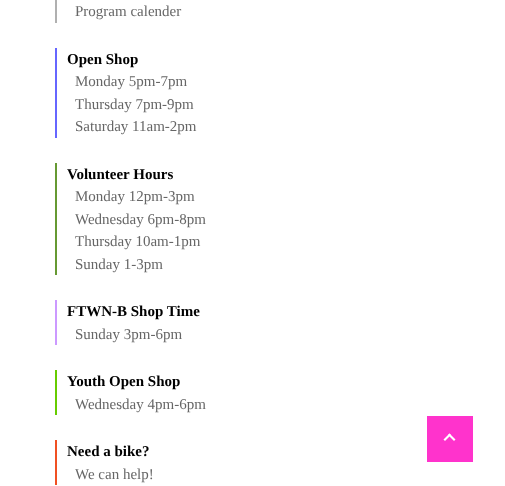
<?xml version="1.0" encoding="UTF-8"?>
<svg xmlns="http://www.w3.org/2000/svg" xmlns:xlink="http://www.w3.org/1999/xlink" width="505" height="486">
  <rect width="100%" height="100%" fill="#ffffff" />
  <rect x="55" width="2" height="23" fill="#b0b0b0" />
  <rect x="55" y="48" width="2" height="90" fill="#6666ff" />
  <rect x="55" y="163" width="2" height="112" fill="#669933" />
  <rect x="55" y="300" width="2" height="45" fill="#cc99ff" />
  <rect x="55" y="370" width="2" height="45" fill="#66cc00" />
  <rect x="55" y="440" width="2" height="45" fill="#f05023" />
  <rect x="427" y="416" width="46" height="46" fill="#ff33cc" />
  <path d="M 443.5 439.5 l 6 -6 l 1.5 1.5 l -6 6 z" fill="#ffffff" />
  <path d="M 448 435 l 1.5 -1.5 l 6 6 l -1.5 1.5 z" fill="#ffffff" />
  <text x="75" y="16" style="font-family: Liberation Serif; font-size: 15px; fill: #666666">Program calender</text>
  <text x="67" y="64" style="font-family: Liberation Serif; font-size: 15px; font-weight: bold; fill: #000000">Open Shop</text>
  <text x="75" y="86" style="font-family: Liberation Serif; font-size: 15px; fill: #666666">Monday 5pm-7pm</text>
  <text x="75" y="109" style="font-family: Liberation Serif; font-size: 15px; fill: #666666">Thursday 7pm-9pm</text>
  <text x="75" y="131" style="font-family: Liberation Serif; font-size: 15px; fill: #666666">Saturday 11am-2pm</text>
  <text x="67" y="179" style="font-family: Liberation Serif; font-size: 15px; font-weight: bold; fill: #000000">Volunteer Hours</text>
  <text x="75" y="201" style="font-family: Liberation Serif; font-size: 15px; fill: #666666">Monday 12pm-3pm</text>
  <text x="75" y="224" style="font-family: Liberation Serif; font-size: 15px; fill: #666666">Wednesday 6pm-8pm</text>
  <text x="75" y="246" style="font-family: Liberation Serif; font-size: 15px; fill: #666666">Thursday 10am-1pm</text>
  <text x="75" y="269" style="font-family: Liberation Serif; font-size: 15px; fill: #666666">Sunday 1-3pm</text>
  <text x="67" y="316" style="font-family: Liberation Serif; font-size: 15px; font-weight: bold; fill: #000000">FTWN-B Shop Time</text>
  <text x="75" y="339" style="font-family: Liberation Serif; font-size: 15px; fill: #666666">Sunday 3pm-6pm</text>
  <text x="67" y="386" style="font-family: Liberation Serif; font-size: 15px; font-weight: bold; fill: #000000">Youth Open Shop</text>
  <text x="75" y="409" style="font-family: Liberation Serif; font-size: 15px; fill: #666666">Wednesday 4pm-6pm</text>
  <text x="67" y="456" style="font-family: Liberation Serif; font-size: 15px; font-weight: bold; fill: #000000">Need a bike?</text>
  <text x="75" y="479" style="font-family: Liberation Serif; font-size: 15px; fill: #666666">We can help!</text>
</svg>
